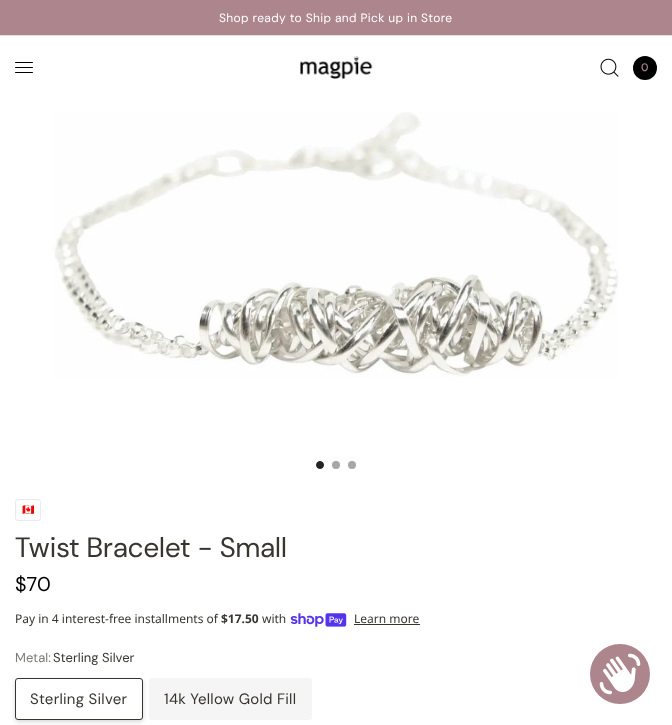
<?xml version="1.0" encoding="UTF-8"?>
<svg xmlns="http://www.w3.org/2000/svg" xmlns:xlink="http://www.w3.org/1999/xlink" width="672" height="725">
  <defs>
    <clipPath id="clip1"><rect x="86" y="12" width="500" height="12" /></clipPath>
  </defs>
  <rect width="100%" height="100%" fill="#ffffff" />
  <rect width="672" height="35" fill="#ac868c" />
  <rect y="35" width="672" height="1" fill="#e2e2e2" />
  <rect x="15" y="62" width="18" height="1" rx="0.5" fill="#000000" />
  <rect x="15" y="67" width="18" height="1" rx="0.5" fill="#000000" />
  <rect x="15" y="72" width="18" height="1" rx="0.5" fill="#000000" />
  <image x="300" y="56" width="73" height="23" xlink:href="image1.png" />
  <image x="600" y="58" width="19" height="19" xlink:href="image2.png" />
  <circle cx="645" cy="68" r="12" fill="#000000" />
  <image x="53" y="112" width="566" height="266" xlink:href="image3.png" />
  <circle cx="320" cy="465" r="3.5" fill="#232323" stroke="#232323" />
  <circle cx="336" cy="465" r="4" fill="#a7a7a7" />
  <circle cx="352" cy="465" r="4" fill="#a7a7a7" />
  <rect x="15.5" y="499.5" width="25" height="21" rx="2.5" fill="none" stroke="#eaeaea" />
  <image x="290" y="613" width="57" height="14" xlink:href="image4.png" />
  <rect x="354" y="624" width="66" height="1" fill="#38352f" />
  <rect x="149" y="678" width="163" height="42" rx="3" fill="#f5f5f5" />
  <rect x="15" y="680" width="128" height="42" rx="3" fill="#000000" fill-opacity="0.15" filter="blur(2px)" />
  <rect x="15.5" y="678.5" width="127" height="41" rx="2.5" fill="#ffffff" stroke="#38352f" />
  <circle cx="620" cy="674" r="30" fill="#ac868c" />
  <image x="599" y="653" width="42" height="42" xlink:href="image5.png" />
  <g clip-path="url(#clip1)">
    <text x="219" y="22" style="font-family: DM Sans; font-size: 12px; letter-spacing: 0.35px; fill: #ffffff">Shop ready to Ship and Pick up in Store</text>
  </g>
  <text x="641" y="71" style="font-family: DM Sans; font-size: 11px; font-weight: 500; fill: #ac868c">0</text>
  <text x="22" y="513" style="font-family: Noto Color Emoji; font-size: 10px; fill: #38352f">🇨🇦</text>
  <text x="15" y="557" style="font-family: 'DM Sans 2'; font-size: 28px; fill: #38352f">Twist Bracelet - Small</text>
  <text x="15" y="591" style="font-family: 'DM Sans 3'; font-size: 20px; fill: #000000">$70</text>
  <text x="15" y="623" style="font-family: Noto Sans; font-size: 12px; fill: #38352f">Pay in 4 interest-free installments of</text>
  <text x="221" y="623" style="font-family: Noto Sans; font-size: 12px; font-weight: bold; fill: #38352f">$17.50</text>
  <text x="262" y="623" style="font-family: Noto Sans; font-size: 12px; fill: #38352f">with</text>
  <text x="354" y="623" style="font-family: Noto Sans; font-size: 12px; fill: #38352f">Learn more</text>
  <text x="15" y="662" style="font-family: 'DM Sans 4'; font-size: 13px; fill: #7e7c78">Metal:</text>
  <text x="53" y="662" style="font-family: 'DM Sans 4'; font-size: 13px; fill: #38352f">Sterling Silver</text>
  <text x="30" y="704" style="font-family: 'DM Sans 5'; font-size: 15px; letter-spacing: 0.25px; fill: #38352f">Sterling Silver</text>
  <text x="164" y="704" style="font-family: 'DM Sans 5'; font-size: 15px; letter-spacing: 0.25px; fill: #38352f">14k Yellow Gold Fill</text>
</svg>
